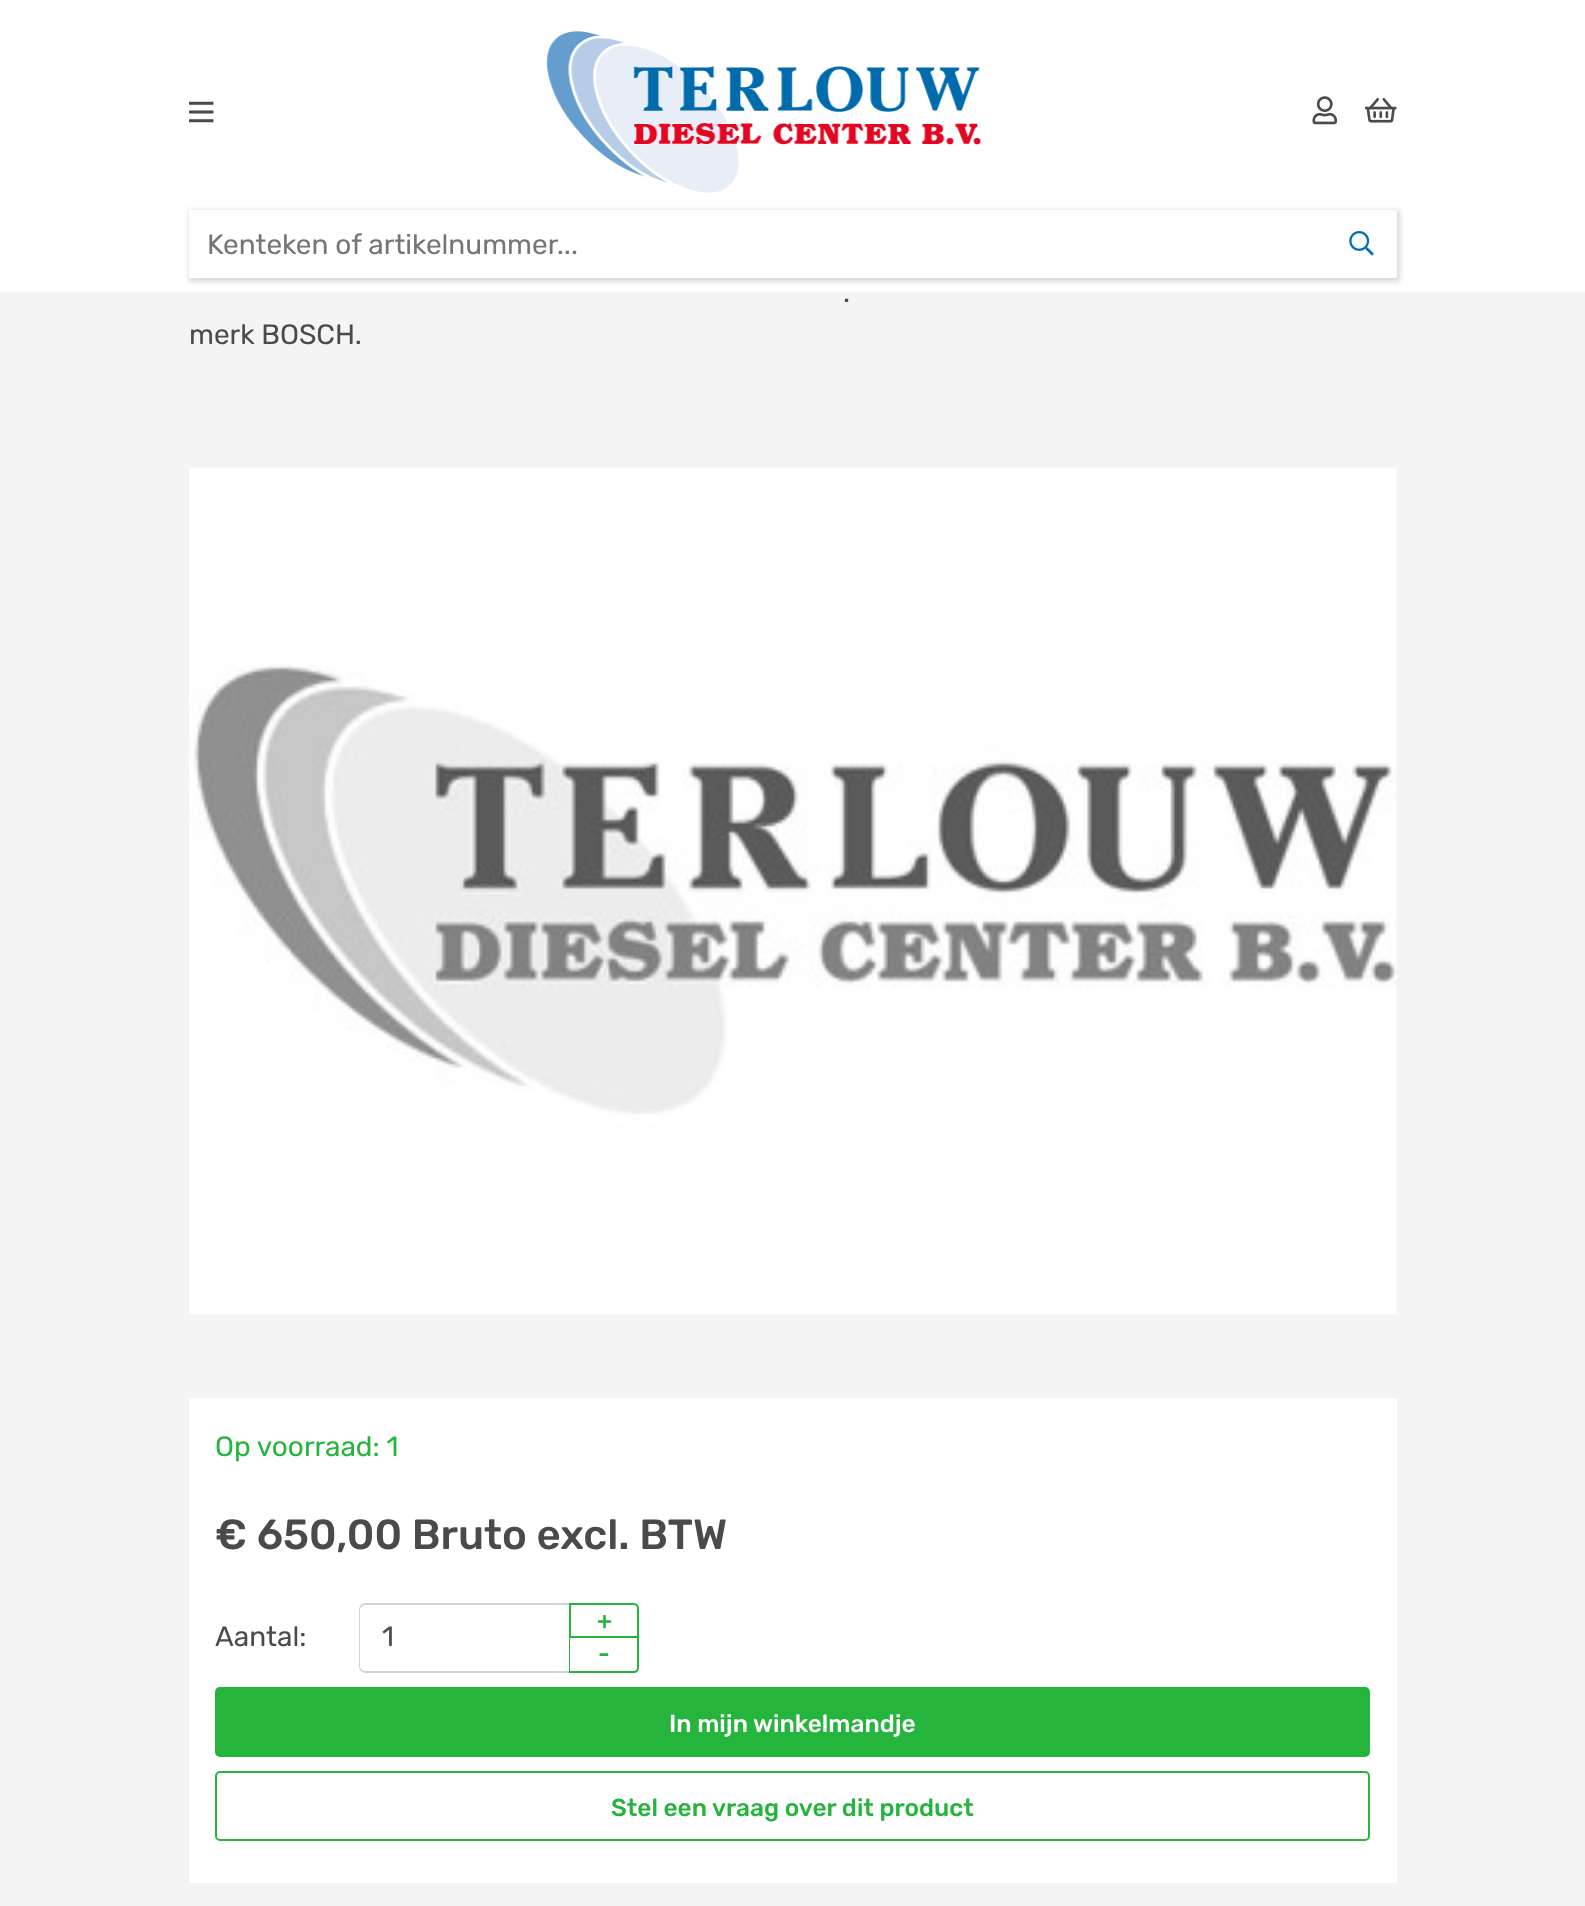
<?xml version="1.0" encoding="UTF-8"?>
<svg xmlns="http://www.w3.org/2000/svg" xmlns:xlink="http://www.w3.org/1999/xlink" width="1585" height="1906">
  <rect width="100%" height="100%" fill="#f4f4f4" />
  <rect width="1585" height="292" fill="#ffffff" />
  <image x="189" y="101" width="25" height="22" xlink:href="image1.png" />
  <image x="546" y="31" width="436" height="162" xlink:href="image2.png" />
  <image x="1312" y="96" width="25" height="29" xlink:href="image3.png" />
  <image x="1365" y="98" width="32" height="25" xlink:href="image4.png" />
  <rect x="189" y="210" width="1211" height="72" fill="#000000" fill-opacity="0.15" filter="blur(2.5px)" />
  <rect x="189" y="210" width="1208" height="68" fill="#ffffff" />
  <image x="1349" y="231" width="25" height="25" xlink:href="image5.png" />
  <image x="189" y="467" width="1208" height="848" xlink:href="image6.png" />
  <rect x="189" y="1398" width="1208" height="485" fill="#ffffff" />
  <path d="M 366 1603 h 203 v 70 h -203 c -4 0 -7 -3 -7 -7 v -56 c 0 -4 3 -7 7 -7 z m 0 2 h 203 v 66 h -203 c -3 0 -6 -2 -6 -5 v -56 c 0 -3 3 -5 6 -5 z" fill="#ced4da" fill-rule="evenodd" />
  <path d="M 570 1604 h 64 c 2 0 4 2 4 4 v 29 h -68 z" fill="none" stroke="#25b43c" stroke-width="2" />
  <path d="M 569 1638 h 70 v 30 c 0 3 -3 5 -5 5 h -65 z m 1 0 h 67 v 30 c 0 2 -2 3 -3 3 h -64 z" fill="#25b43c" fill-rule="evenodd" />
  <rect x="216" y="1688" width="1153" height="68" rx="4" fill="#25b43c" stroke="#25b43c" stroke-width="2" />
  <rect x="216" y="1772" width="1153" height="68" rx="4" fill="none" stroke="#25b43c" stroke-width="2" />
  <text x="207" y="254" style="font-family: Rubik; font-size: 28px; fill: #757575">Kenteken of artikelnummer...</text>
  <text x="843" y="302" style="font-family: Rubik; font-size: 28px; fill: #4a4a4a">.</text>
  <text x="189" y="344" style="font-family: Rubik; font-size: 28px; fill: #4a4a4a">merk BOSCH.</text>
  <text x="215" y="1456" style="font-family: Rubik; font-size: 28px; fill: #25b43c">Op voorraad: 1</text>
  <text x="215" y="1549" style="font-family: Rubik; font-size: 42px; font-weight: 500; fill: #4a4a4a">€ 650,00 Bruto excl. BTW</text>
  <text x="215" y="1646" style="font-family: Rubik; font-size: 28px; fill: #4a4a4a">Aantal:</text>
  <text x="382" y="1646" style="font-family: Rubik; font-size: 28px; fill: #495057">1</text>
  <text x="597" y="1629" style="font-family: Rubik; font-size: 24.5px; font-weight: 500; fill: #25b43c">+</text>
  <text x="598" y="1662" style="font-family: Rubik; font-size: 24.5px; font-weight: 500; fill: #25b43c">-</text>
  <text x="669" y="1732" style="font-family: Rubik; font-size: 24.5px; font-weight: 500; fill: #ffffff">In mijn winkelmandje</text>
  <text x="611" y="1816" style="font-family: Rubik; font-size: 24.5px; font-weight: 500; fill: #25b43c">Stel een vraag over dit product</text>
</svg>
